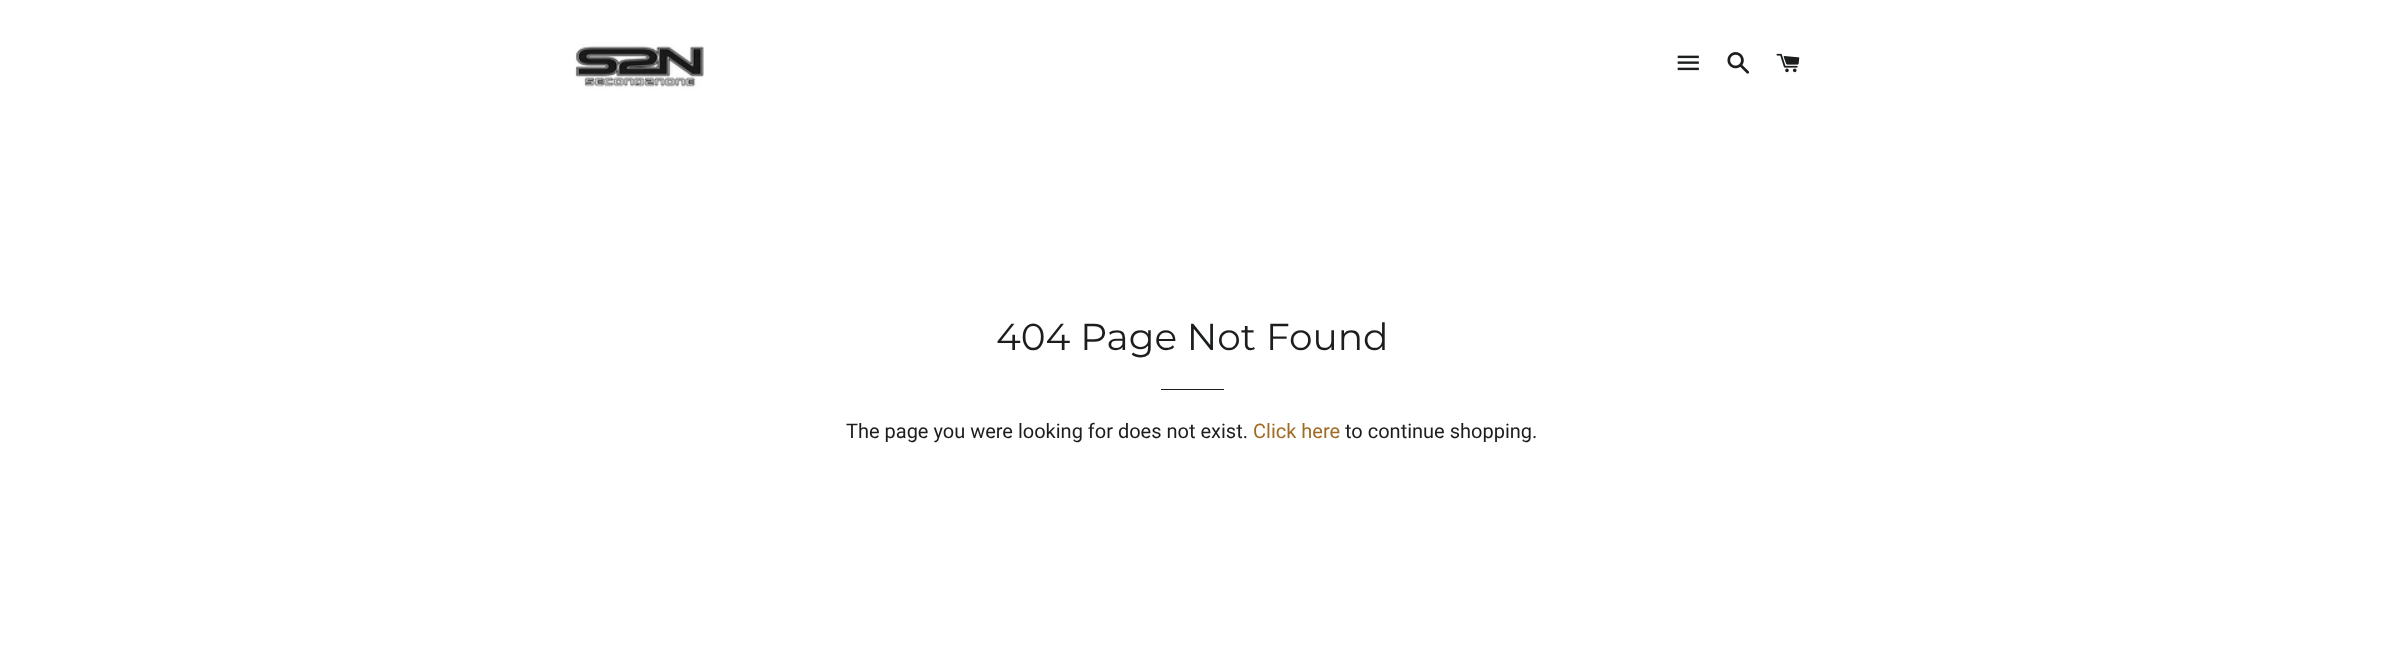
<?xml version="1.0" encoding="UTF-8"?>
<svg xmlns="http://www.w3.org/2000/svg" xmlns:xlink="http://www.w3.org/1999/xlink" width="2383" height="662">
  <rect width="100%" height="100%" fill="#ffffff" />
  <image x="574" y="44" width="130" height="45" xlink:href="image1.png" />
  <image x="1677" y="55" width="22" height="16" xlink:href="image2.png" />
  <image x="1727" y="52" width="23" height="22" xlink:href="image3.png" />
  <image x="1776" y="53" width="24" height="20" xlink:href="image4.png" />
  <rect x="1161" y="389" width="63" height="1" fill="#1c1d1d" />
  <text x="996" y="350" style="font-family: Montserrat; font-size: 37.5px; font-weight: 100; fill: #1c1d1d">404 Page Not Found</text>
  <text x="846" y="438" style="font-family: Roboto; font-size: 20px; fill: #1c1d1d">The page you were looking for does not exist.</text>
  <text x="1253" y="438" style="font-family: Roboto; font-size: 20px; fill: #a26b25">Click here</text>
  <text x="1345" y="438" style="font-family: Roboto; font-size: 20px; fill: #1c1d1d">to continue shopping.</text>
</svg>
